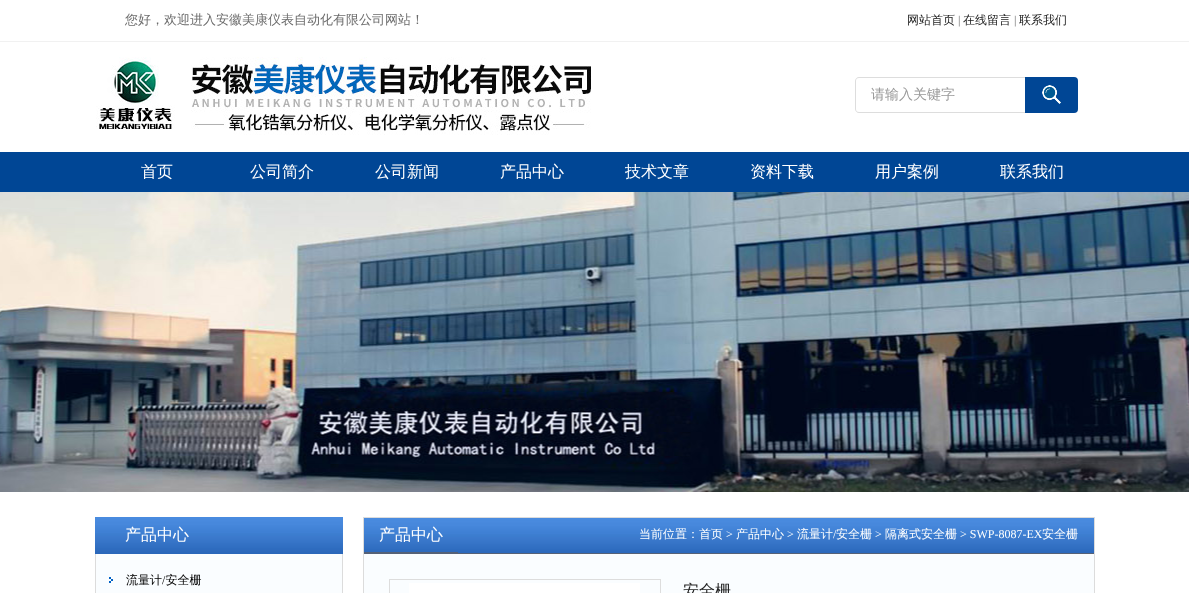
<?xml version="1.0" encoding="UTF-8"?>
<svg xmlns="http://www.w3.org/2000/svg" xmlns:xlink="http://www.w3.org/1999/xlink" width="1189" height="593">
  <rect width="100%" height="100%" fill="#ffffff" />
  <rect y="41" width="1189" height="1" fill="#f1f1f1" />
  <image x="96" y="57" width="495" height="78" xlink:href="image1.png" />
  <path d="M 859 77 h 166 v 36 h -166 c -2 0 -4 -2 -4 -4 v -28 c 0 -2 2 -4 4 -4 z m 0 1 h 166 v 34 h -166 c -2 0 -3 -1 -3 -3 v -28 c 0 -2 1 -3 3 -3 z" fill="#dddddd" fill-rule="evenodd" />
  <image x="1025" y="77" width="53" height="36" xlink:href="image2.png" />
  <rect y="152" width="1189" height="40" fill="#004695" />
  <image x="0" y="192" width="1189" height="300" xlink:href="image3.png" />
  <image x="95" y="517" width="248" height="37" xlink:href="image4.png" />
  <rect x="96" y="554" width="246" height="39" fill="#fafdff" />
  <rect x="342" y="554" width="1" height="39" fill="#dcdcdc" />
  <rect x="95" y="554" width="1" height="39" fill="#dcdcdc" />
  <image x="109" y="577" width="4" height="6" xlink:href="image5.png" />
  <rect x="364" y="554" width="730" height="39" fill="#fafdff" />
  <rect x="363.5" y="517.5" width="731" height="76" fill="none" stroke="#dcdcdc" />
  <image x="364" y="518" width="730" height="35" xlink:href="image6.png" />
  <rect x="458" y="553" width="636" height="1" fill="#556177" />
  <rect x="364" y="552" width="94" height="2" fill="#556177" />
  <rect x="389.5" y="579.5" width="271" height="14" fill="none" stroke="#dddddd" />
  <rect x="409" y="583" width="231" height="10" fill="#ffffff" />
  <text x="125" y="24" style="font-family: WenQuanYi Zen Hei; font-size: 13px; font-weight: 500; fill: #6c6c6c">您好，欢迎进入安徽美康仪表自动化有限公司网站！</text>
  <text x="907" y="24" style="font-family: WenQuanYi Zen Hei; font-size: 12px; font-weight: 500; fill: #222222">网站首页</text>
  <text x="958" y="24" style="font-family: Liberation Serif; font-size: 12px; fill: #6c6c6c">|</text>
  <text x="963" y="24" style="font-family: WenQuanYi Zen Hei; font-size: 12px; font-weight: 500; fill: #222222">在线留言</text>
  <text x="1014" y="24" style="font-family: Liberation Serif; font-size: 12px; fill: #6c6c6c">|</text>
  <text x="1019" y="24" style="font-family: WenQuanYi Zen Hei; font-size: 12px; font-weight: 500; fill: #222222">联系我们</text>
  <text x="871" y="99" style="font-family: WenQuanYi Zen Hei; font-size: 14px; font-weight: 500; fill: #999999">请输入关键字</text>
  <text x="141" y="177" style="font-family: WenQuanYi Zen Hei; font-size: 16px; font-weight: 500; fill: #ffffff">首页</text>
  <text x="250" y="177" style="font-family: WenQuanYi Zen Hei; font-size: 16px; font-weight: 500; fill: #ffffff">公司简介</text>
  <text x="375" y="177" style="font-family: WenQuanYi Zen Hei; font-size: 16px; font-weight: 500; fill: #ffffff">公司新闻</text>
  <text x="500" y="177" style="font-family: WenQuanYi Zen Hei; font-size: 16px; font-weight: 500; fill: #ffffff">产品中心</text>
  <text x="625" y="177" style="font-family: WenQuanYi Zen Hei; font-size: 16px; font-weight: 500; fill: #ffffff">技术文章</text>
  <text x="750" y="177" style="font-family: WenQuanYi Zen Hei; font-size: 16px; font-weight: 500; fill: #ffffff">资料下载</text>
  <text x="875" y="177" style="font-family: WenQuanYi Zen Hei; font-size: 16px; font-weight: 500; fill: #ffffff">用户案例</text>
  <text x="1000" y="177" style="font-family: WenQuanYi Zen Hei; font-size: 16px; font-weight: 500; fill: #ffffff">联系我们</text>
  <text x="125" y="540" style="font-family: WenQuanYi Zen Hei; font-size: 16px; font-weight: 500; fill: #ffffff">产品中心</text>
  <text x="126" y="584" style="font-family: WenQuanYi Zen Hei; font-size: 12px; font-weight: 500; fill: #000000">流量计 安全栅</text>
  <text x="162" y="584" style="font-family: Liberation Serif; font-size: 12px; fill: #000000">/</text>
  <text x="379" y="540" style="font-family: WenQuanYi Zen Hei; font-size: 16px; font-weight: 500; fill: #ffffff">产品中心</text>
  <text x="639" y="538" style="font-family: WenQuanYi Zen Hei; font-size: 12px; font-weight: 500; fill: #ffffff">当前位置：首页</text>
  <text x="726" y="538" style="font-family: Liberation Serif; font-size: 12px; fill: #ffffff">&gt;</text>
  <text x="736" y="538" style="font-family: WenQuanYi Zen Hei; font-size: 12px; font-weight: 500; fill: #ffffff">产品中心</text>
  <text x="787" y="538" style="font-family: Liberation Serif; font-size: 12px; fill: #ffffff">&gt;</text>
  <text x="797" y="538" style="font-family: WenQuanYi Zen Hei; font-size: 12px; font-weight: 500; fill: #ffffff">流量计</text>
  <text x="833" y="538" style="font-family: Liberation Serif; font-size: 12px; fill: #ffffff">/</text>
  <text x="836" y="538" style="font-family: WenQuanYi Zen Hei; font-size: 12px; font-weight: 500; fill: #ffffff">安全栅</text>
  <text x="875" y="538" style="font-family: Liberation Serif; font-size: 12px; fill: #ffffff">&gt;</text>
  <text x="885" y="538" style="font-family: WenQuanYi Zen Hei; font-size: 12px; font-weight: 500; fill: #ffffff">隔离式安全栅</text>
  <text x="960" y="538" style="font-family: Liberation Serif; font-size: 12px; fill: #ffffff">&gt; SWP-8087-EX</text>
  <text x="1042" y="538" style="font-family: WenQuanYi Zen Hei; font-size: 12px; font-weight: 500; fill: #ffffff">安全栅</text>
  <text x="683" y="596" style="font-family: WenQuanYi Zen Hei; font-size: 16px; font-weight: 500; fill: #222222">安全栅</text>
</svg>
